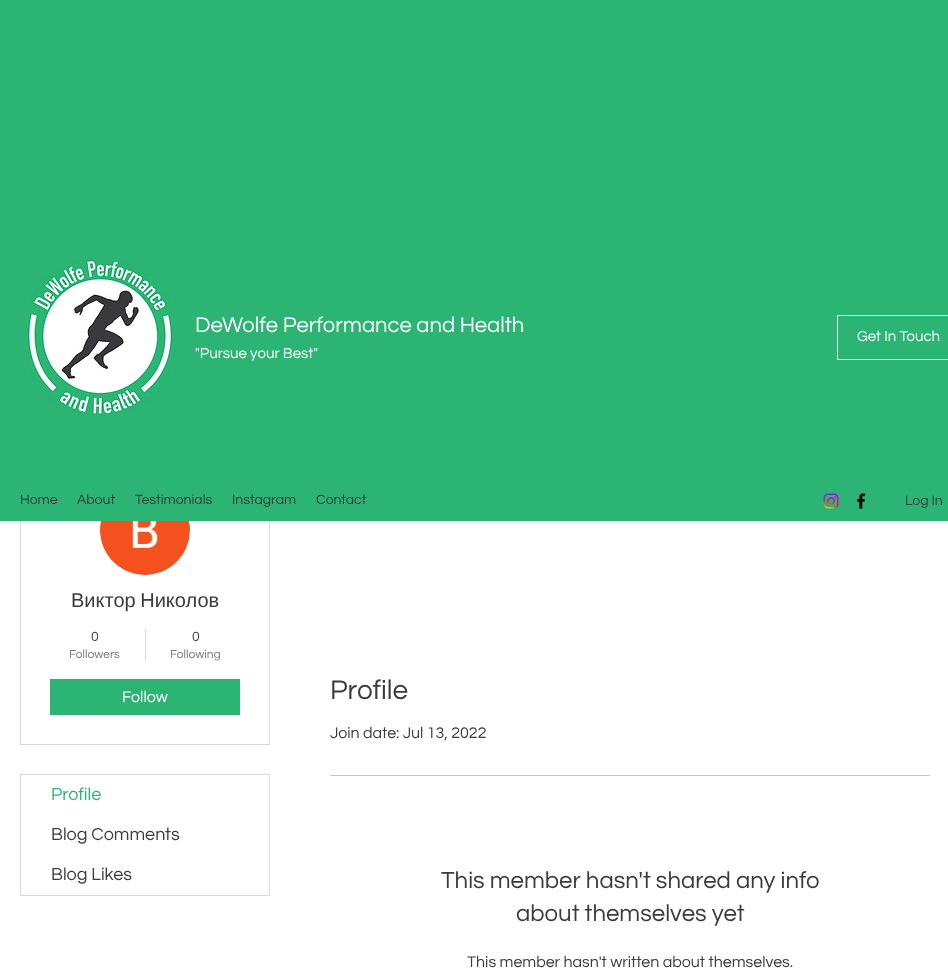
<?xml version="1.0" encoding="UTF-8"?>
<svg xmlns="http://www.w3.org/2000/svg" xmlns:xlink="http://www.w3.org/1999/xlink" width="948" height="973">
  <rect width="100%" height="100%" fill="#ffffff" />
  <rect x="20.5" y="455.5" width="249" height="289" fill="none" stroke="#d8d8d8" />
  <circle cx="145" cy="530" r="45" fill="#d8d8d8" />
  <rect width="948" height="521" fill="#2bb473" />
  <image x="28" y="260" width="144" height="155" xlink:href="image1.png" />
  <rect x="837.5" y="315.5" width="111" height="44" fill="none" stroke="#ffffff" />
  <image x="823" y="493" width="16" height="16" xlink:href="image2.png" />
  <image x="857" y="493" width="9" height="16" xlink:href="image3.png" />
  <image x="100" y="521" width="90" height="54" xlink:href="image4.png" />
  <rect x="145" y="629" width="1" height="32" fill="#d8d8d8" />
  <rect x="50" y="679" width="190" height="36" fill="#2bb473" />
  <rect x="20.5" y="774.5" width="249" height="121" fill="none" stroke="#d8d8d8" />
  <rect x="330" y="775" width="600" height="1" fill="#c4c4c4" />
  <text x="195" y="332" style="font-family: Questrial; font-size: 22px; fill: #ffffff">DeWolfe Performance and Health</text>
  <text x="195" y="358" style="font-family: Questrial; font-size: 15px; fill: #ffffff">"Pursue your Best"</text>
  <text x="857" y="341" style="font-family: Questrial; font-size: 15px; fill: #ffffff">Get In Touch</text>
  <text x="20" y="504" style="font-family: Questrial; font-size: 14px; fill: #3b3b3b">Home</text>
  <text x="77" y="504" style="font-family: Questrial; font-size: 14px; fill: #3b3b3b">About</text>
  <text x="135" y="504" style="font-family: Questrial; font-size: 14px; fill: #3b3b3b">Testimonials</text>
  <text x="232" y="504" style="font-family: Questrial; font-size: 14px; fill: #3b3b3b">Instagram</text>
  <text x="316" y="504" style="font-family: Questrial; font-size: 14px; fill: #3b3b3b">Contact</text>
  <text x="905" y="505" style="font-family: Questrial; font-size: 14px; fill: #3b3b3b">Log In</text>
  <text x="71" y="607" word-spacing="-1" style="font-family: Liberation Sans; font-size: 20px; fill: #3b3b3b">Виктор Николов</text>
  <text x="91" y="641" style="font-family: Questrial; font-size: 14px; fill: #3b3b3b">0</text>
  <text x="69" y="658" style="font-family: Questrial; font-size: 12px; fill: #767676">Followers</text>
  <text x="192" y="641" style="font-family: Questrial; font-size: 14px; fill: #3b3b3b">0</text>
  <text x="170" y="658" style="font-family: Questrial; font-size: 12px; fill: #767676">Following</text>
  <text x="122" y="702" style="font-family: Questrial; font-size: 16px; fill: #ffffff">Follow</text>
  <text x="51" y="800" style="font-family: Questrial; font-size: 18px; fill: #2bb473">Profile</text>
  <text x="51" y="840" style="font-family: Questrial; font-size: 18px; fill: #3b3b3b">Blog Comments</text>
  <text x="51" y="880" style="font-family: Questrial; font-size: 18px; fill: #3b3b3b">Blog Likes</text>
  <text x="330" y="699" style="font-family: Questrial; font-size: 28px; fill: #3b3b3b">Profile</text>
  <text x="330" y="738" style="font-family: Questrial; font-size: 16px; fill: #3b3b3b">Join date: Jul 13, 2022</text>
  <text x="441" y="888" style="font-family: Questrial; font-size: 24px; fill: #3b3b3b">This member hasn't shared any info</text>
  <text x="516" y="921" style="font-family: Questrial; font-size: 24px; fill: #3b3b3b">about themselves yet</text>
  <text x="467" y="967" style="font-family: Questrial; font-size: 16px; fill: #3b3b3b">This member hasn't written about themselves.</text>
</svg>
